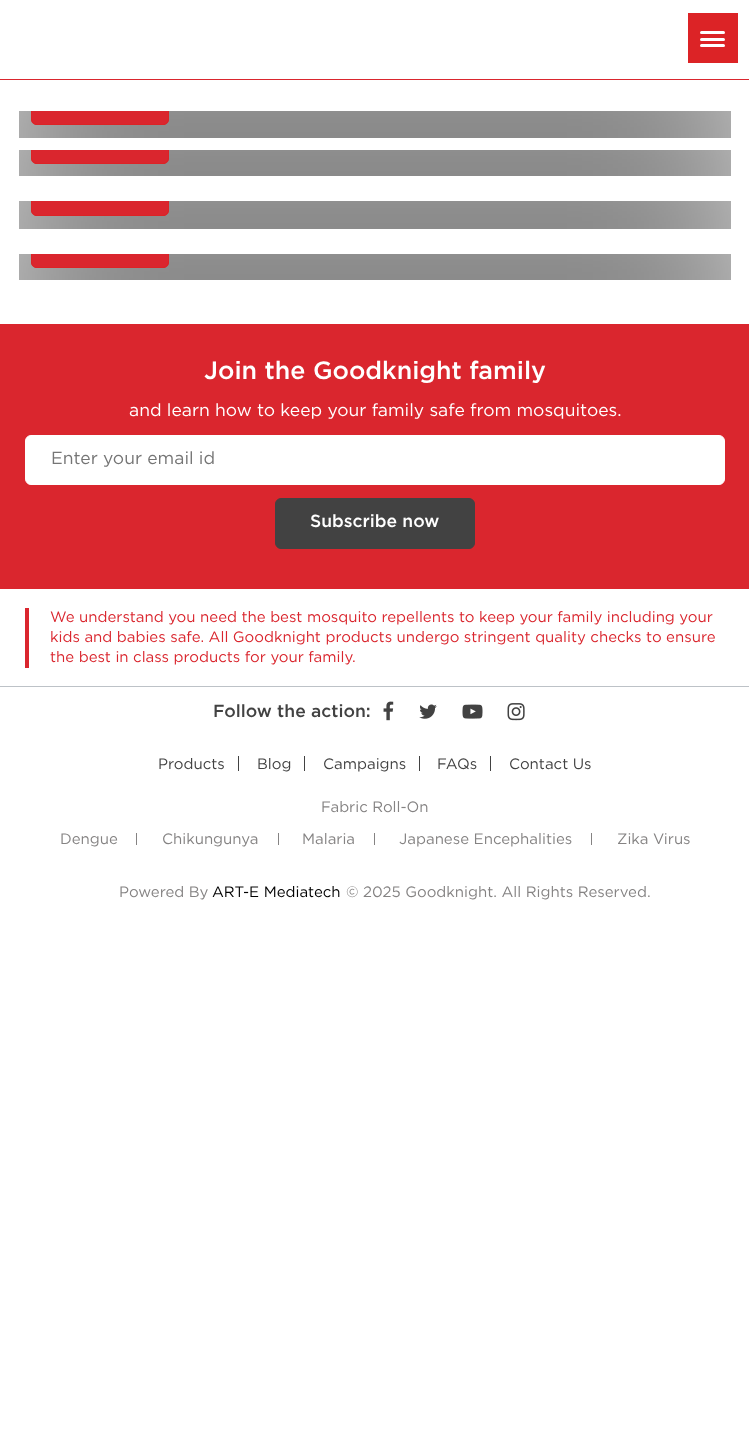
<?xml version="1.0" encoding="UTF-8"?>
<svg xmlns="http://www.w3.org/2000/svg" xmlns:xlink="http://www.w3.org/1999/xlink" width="749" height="1433">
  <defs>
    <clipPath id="clip1"><rect x="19" y="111" width="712" height="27" /></clipPath>
    <clipPath id="clip2"><rect x="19" y="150" width="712" height="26" /></clipPath>
    <clipPath id="clip3"><rect x="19" y="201" width="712" height="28" /></clipPath>
    <clipPath id="clip4"><rect x="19" y="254" width="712" height="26" /></clipPath>
    <clipPath id="clip5"><rect x="19" y="111" width="712" height="27" /></clipPath>
    <clipPath id="clip6"><rect x="19" y="150" width="712" height="26" /></clipPath>
    <clipPath id="clip7"><rect x="19" y="201" width="712" height="28" /></clipPath>
    <clipPath id="clip8"><rect x="19" y="254" width="712" height="26" /></clipPath>
  </defs>
  <rect width="100%" height="100%" fill="#ffffff" />
  <rect y="324" width="749" height="265" fill="#da262e" />
  <g clip-path="url(#clip1)">
    <rect x="-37" y="81" width="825" height="113" fill="#000000" filter="blur(94px)" />
  </g>
  <g clip-path="url(#clip2)">
    <rect x="-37" y="120" width="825" height="113" fill="#000000" filter="blur(94px)" />
  </g>
  <g clip-path="url(#clip3)">
    <rect x="-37" y="173" width="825" height="112" fill="#000000" filter="blur(94px)" />
  </g>
  <g clip-path="url(#clip4)">
    <rect x="-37" y="224" width="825" height="112" fill="#000000" filter="blur(94px)" />
  </g>
  <rect y="79" width="749" height="1" fill="#da262e" />
  <rect x="688" y="13" width="50" height="50" fill="#dc2326" />
  <rect x="700" y="31" width="25" height="3" rx="1.5" fill="#ffffff" />
  <rect x="700" y="38" width="25" height="3" rx="1.5" fill="#ffffff" />
  <rect x="700" y="44" width="25" height="3" rx="1.5" fill="#ffffff" />
  <path d="M 31 111 h 138 v 8 c 0 3.5 -2.5 6 -6 6 h -126 c -3.5 0 -6 -2.5 -6 -6 z" fill="#da262e" />
  <g clip-path="url(#clip5)">
    <rect x="31.5" y="81.5" width="137" height="43" rx="5.5" fill="none" stroke="#dc2326" />
  </g>
  <path d="M 31 150 h 138 v 8 c 0 3.5 -2.5 6 -6 6 h -126 c -3.5 0 -6 -2.5 -6 -6 z" fill="#da262e" />
  <g clip-path="url(#clip6)">
    <rect x="31.5" y="120.5" width="137" height="43" rx="5.5" fill="none" stroke="#dc2326" />
  </g>
  <path d="M 31 201 h 138 v 9 c 0 3.5 -2.5 6 -6 6 h -126 c -3.5 0 -6 -2.5 -6 -6 z" fill="#da262e" />
  <g clip-path="url(#clip7)">
    <rect x="31.5" y="171.5" width="137" height="44" rx="5.5" fill="none" stroke="#dc2326" />
  </g>
  <path d="M 31 254 h 138 v 8 c 0 3.5 -2.5 6 -6 6 h -126 c -3.5 0 -6 -2.5 -6 -6 z" fill="#da262e" />
  <g clip-path="url(#clip8)">
    <rect x="31.5" y="224.5" width="137" height="43" rx="5.5" fill="none" stroke="#dc2326" />
  </g>
  <rect x="25.5" y="435.5" width="699" height="49" rx="5.5" fill="#ffffff" stroke="#ffffff" />
  <rect x="275.5" y="498.5" width="199" height="50" rx="5.5" fill="#424242" stroke="#424242" />
  <rect y="686" width="749" height="1" fill="#bdc2c7" />
  <rect x="25" y="608" width="4" height="60" fill="#da262e" />
  <image x="383" y="701" width="11" height="20" xlink:href="image1.png" />
  <image x="419" y="704" width="18" height="15" xlink:href="image2.png" />
  <image x="462" y="704" width="21" height="15" xlink:href="image3.png" />
  <image x="507" y="703" width="18" height="18" xlink:href="image4.png" />
  <rect x="238" y="756" width="1" height="15" fill="#424242" />
  <rect x="304" y="756" width="1" height="15" fill="#424242" />
  <rect x="419" y="756" width="1" height="15" fill="#424242" />
  <rect x="490" y="756" width="1" height="15" fill="#424242" />
  <rect x="136" y="833" width="1" height="12" fill="#858383" />
  <rect x="278" y="833" width="1" height="12" fill="#858383" />
  <rect x="374" y="833" width="1" height="12" fill="#858383" />
  <rect x="591" y="833" width="1" height="12" fill="#858383" />
  <text x="204" y="379" style="font-family: Gotham; font-size: 25px; font-weight: 500; fill: #ffffff">Join the Goodknight family</text>
  <text x="129" y="416" style="font-family: Gotham; font-size: 17.5px; fill: #ffffff">and learn how to keep your family safe from mosquitoes.</text>
  <text x="51" y="464" style="font-family: Gotham; font-size: 17.5px; fill: #757575">Enter your email id</text>
  <text x="310" y="527" style="font-family: Gotham; font-size: 17.5px; font-weight: 500; fill: #ffffff">Subscribe now</text>
  <text x="50" y="622" style="font-family: Gotham; font-size: 15px; fill: #da262e">We understand you need the best mosquito repellents to keep your family including your</text>
  <text x="50" y="642" style="font-family: Gotham; font-size: 15px; fill: #da262e">kids and babies safe. All Goodknight products undergo stringent quality checks to ensure</text>
  <text x="50" y="662" style="font-family: Gotham; font-size: 15px; fill: #da262e">the best in class products for your family.</text>
  <text x="213" y="717" style="font-family: Gotham; font-size: 17.5px; font-weight: 500; fill: #424242">Follow the action:</text>
  <text x="158" y="769" style="font-family: Gotham; font-size: 15px; fill: #424242">Products</text>
  <text x="257" y="769" style="font-family: Gotham; font-size: 15px; fill: #424242">Blog</text>
  <text x="323" y="769" style="font-family: Gotham; font-size: 15px; fill: #424242">Campaigns</text>
  <text x="437" y="769" style="font-family: Gotham; font-size: 15px; fill: #424242">FAQs</text>
  <text x="509" y="769" style="font-family: Gotham; font-size: 15px; fill: #424242">Contact Us</text>
  <text x="321" y="812" style="font-family: Gotham; font-size: 15px; fill: #858383">Fabric Roll-On</text>
  <text x="60" y="844" style="font-family: Gotham; font-size: 15px; fill: #858383">Dengue</text>
  <text x="162" y="844" style="font-family: Gotham; font-size: 15px; fill: #858383">Chikungunya</text>
  <text x="302" y="844" style="font-family: Gotham; font-size: 15px; fill: #858383">Malaria</text>
  <text x="399" y="844" style="font-family: Gotham; font-size: 15px; fill: #858383">Japanese Encephalities</text>
  <text x="617" y="844" style="font-family: Gotham; font-size: 15px; fill: #858383">Zika Virus</text>
  <text x="119" y="897" style="font-family: Gotham; font-size: 15px; fill: #858383">Powered By</text>
  <text x="212" y="897" style="font-family: Gotham; font-size: 15px; fill: #000000">ART-E Mediatech</text>
  <text x="346" y="897" style="font-family: Gotham; font-size: 15px; fill: #858383">© 2025 Goodknight. All Rights Reserved.</text>
</svg>
